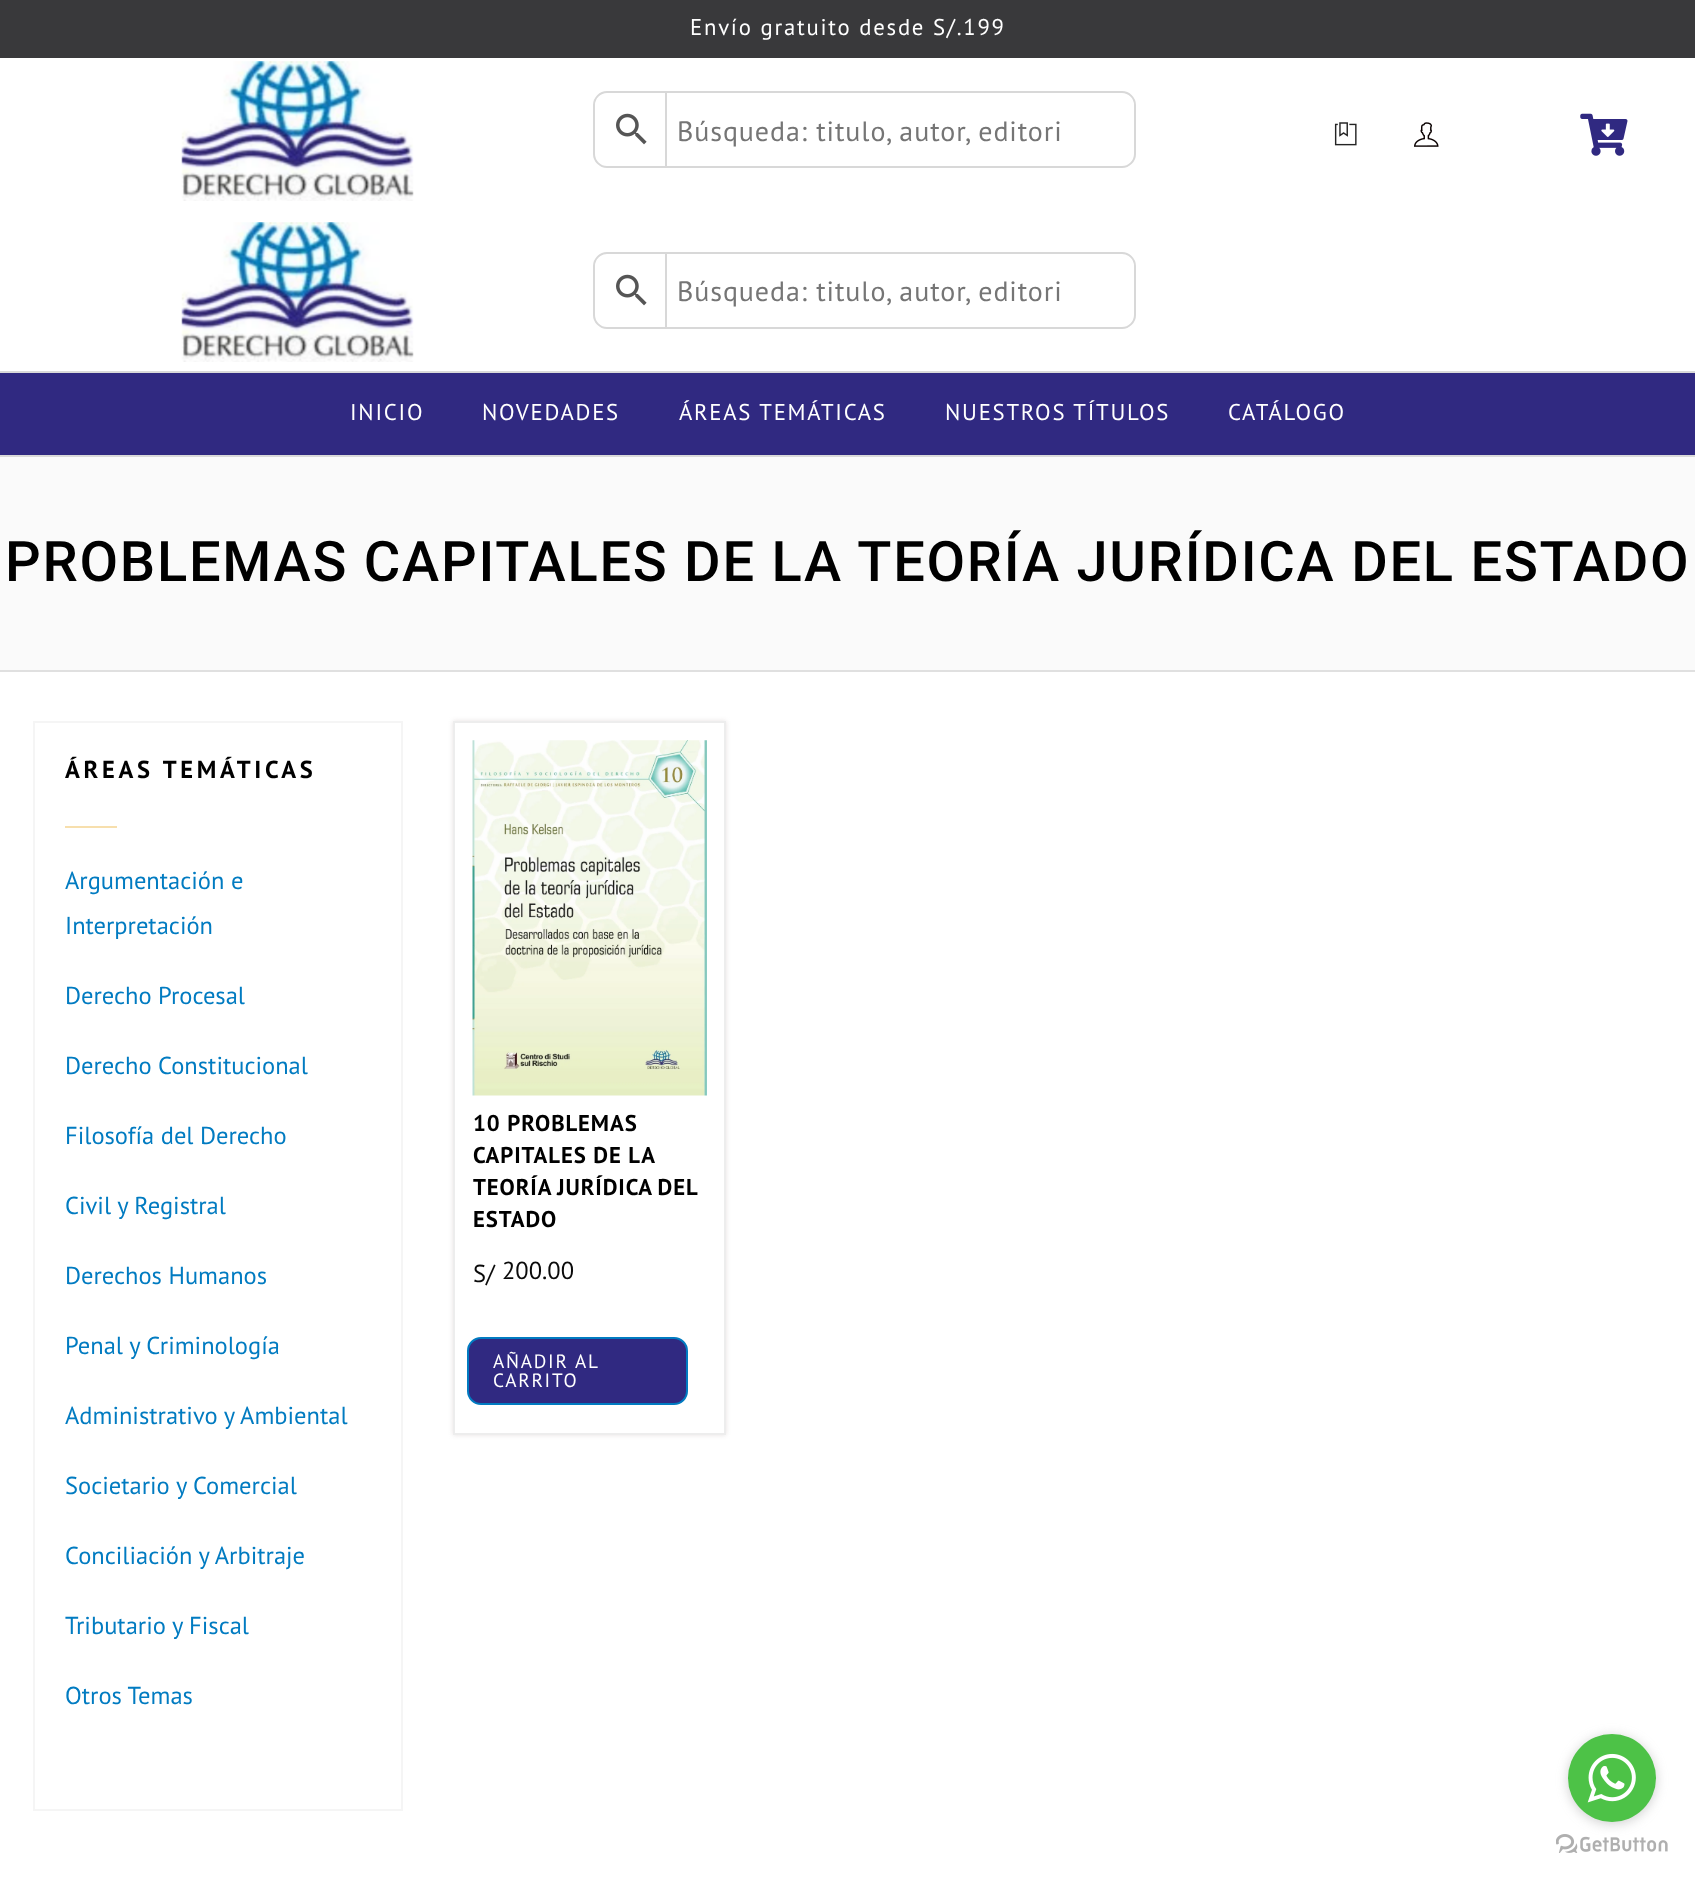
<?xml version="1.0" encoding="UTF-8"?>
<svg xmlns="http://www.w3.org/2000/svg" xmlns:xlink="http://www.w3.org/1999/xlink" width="1695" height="1880">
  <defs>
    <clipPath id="clip1"><path d="M 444 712 h 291 v 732 h -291 z m 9 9 h 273 v 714 h -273 z" clip-rule="evenodd" /></clipPath>
  </defs>
  <rect width="100%" height="100%" fill="#ffffff" />
  <rect width="1695" height="58" fill="#39393b" />
  <image x="181" y="61" width="233" height="140" xlink:href="image1.png" />
  <path d="M 607 92 h 59 v 75 h -59 c -7 0 -13 -6 -13 -13 v -49 c 0 -7 6 -13 13 -13 z" fill="none" stroke="#d8d8d8" stroke-width="2" />
  <image x="616" y="113" width="31" height="32" xlink:href="image2.png" />
  <path d="M 666 92 h 456 c 7 0 13 6 13 13 v 49 c 0 7 -6 13 -13 13 h -456 z" fill="#ffffff" stroke="#d8d8d8" stroke-width="2" />
  <image x="1334" y="122" width="23" height="24" xlink:href="image3.png" />
  <image x="1414" y="122" width="25" height="25" xlink:href="image4.png" />
  <image x="1580" y="113" width="48" height="43" xlink:href="image5.png" />
  <image x="181" y="222" width="233" height="140" xlink:href="image6.png" />
  <path d="M 607 253 h 59 v 75 h -59 c -7 0 -13 -6 -13 -13 v -49 c 0 -7 6 -13 13 -13 z" fill="none" stroke="#d8d8d8" stroke-width="2" />
  <image x="616" y="274" width="31" height="32" xlink:href="image2.png" />
  <path d="M 666 253 h 456 c 7 0 13 6 13 13 v 49 c 0 7 -6 13 -13 13 h -456 z" fill="#ffffff" stroke="#d8d8d8" stroke-width="2" />
  <rect y="373" width="1695" height="82" fill="#302981" />
  <rect y="371" width="1695" height="2" fill="#d9d9d9" />
  <rect y="455" width="1695" height="2" fill="#d9d9d9" />
  <rect y="457" width="1695" height="213" fill="#fafafa" />
  <rect y="670" width="1695" height="2" fill="#e0e0e0" />
  <rect x="34" y="722" width="368" height="1088" fill="none" stroke="#f5f5f5" stroke-width="2" />
  <rect x="65" y="826" width="52" height="2" fill="#f7dfad" />
  <g clip-path="url(#clip1)">
    <rect x="453" y="721" width="273" height="714" fill="#e6e1e1" filter="blur(2.5px)" />
  </g>
  <rect x="454" y="722" width="271" height="712" fill="none" stroke="#ededed" stroke-width="2" />
  <image x="472" y="740" width="235" height="356" xlink:href="image7.png" />
  <rect x="468" y="1338" width="219" height="66" rx="13" fill="#302981" stroke="#017bc1" stroke-width="2" />
  <image x="1556" y="1834" width="112" height="19" xlink:href="image9.png" />
  <rect x="1568" y="1736" width="88" height="88" rx="44" fill="#888888" fill-opacity="0.4" filter="blur(6px)" />
  <circle cx="1612" cy="1778" r="44" fill="#4dc247" />
  <image x="1587" y="1753" width="49" height="50" xlink:href="image8.png" />
  <text x="690" y="35" style="font-family: PT Sans; font-size: 22.75px; letter-spacing: 1.75px; fill: #ffffff">Envío gratuito desde S/.199</text>
  <text x="677" y="141" style="font-family: PT Sans; font-size: 28px; letter-spacing: 0.9px; fill: #757575">Búsqueda: titulo, autor, editori</text>
  <text x="677" y="301" style="font-family: PT Sans; font-size: 28px; letter-spacing: 0.9px; fill: #757575">Búsqueda: titulo, autor, editori</text>
  <text x="350" y="420" style="font-family: PT Sans; font-size: 22.75px; letter-spacing: 1.75px; fill: #ffffff">INICIO</text>
  <text x="482" y="420" style="font-family: PT Sans; font-size: 22.75px; letter-spacing: 1.75px; fill: #ffffff">NOVEDADES</text>
  <text x="679" y="420" style="font-family: PT Sans; font-size: 22.75px; letter-spacing: 1.75px; fill: #ffffff">ÁREAS TEMÁTICAS</text>
  <text x="945" y="420" style="font-family: PT Sans; font-size: 22.75px; letter-spacing: 1.75px; fill: #ffffff">NUESTROS TÍTULOS</text>
  <text x="1228" y="420" style="font-family: PT Sans; font-size: 22.75px; letter-spacing: 1.75px; fill: #ffffff">CATÁLOGO</text>
  <text x="5" y="581" style="font-family: Roboto; font-size: 56px; font-weight: 500; letter-spacing: 1.75px; fill: #000000">PROBLEMAS CAPITALES DE LA TEORÍA JURÍDICA DEL ESTADO</text>
  <text x="65" y="778" style="font-family: PT Sans; font-size: 24.5px; font-weight: bold; letter-spacing: 3.7px; fill: #000000">ÁREAS TEMÁTICAS</text>
  <text x="65" y="889" style="font-family: PT Sans; font-size: 24.5px; fill: #017bc1">Argumentación e</text>
  <text x="65" y="934" style="font-family: PT Sans; font-size: 24.5px; fill: #017bc1">Interpretación</text>
  <text x="65" y="1004" style="font-family: PT Sans; font-size: 24.5px; fill: #017bc1">Derecho Procesal</text>
  <text x="65" y="1074" style="font-family: PT Sans; font-size: 24.5px; fill: #017bc1">Derecho Constitucional</text>
  <text x="65" y="1144" style="font-family: PT Sans; font-size: 24.5px; fill: #017bc1">Filosofía del Derecho</text>
  <text x="65" y="1214" style="font-family: PT Sans; font-size: 24.5px; fill: #017bc1">Civil y Registral</text>
  <text x="65" y="1284" style="font-family: PT Sans; font-size: 24.5px; fill: #017bc1">Derechos Humanos</text>
  <text x="65" y="1354" style="font-family: PT Sans; font-size: 24.5px; fill: #017bc1">Penal y Criminología</text>
  <text x="65" y="1424" style="font-family: PT Sans; font-size: 24.5px; fill: #017bc1">Administrativo y Ambiental</text>
  <text x="65" y="1494" style="font-family: PT Sans; font-size: 24.5px; fill: #017bc1">Societario y Comercial</text>
  <text x="65" y="1564" style="font-family: PT Sans; font-size: 24.5px; fill: #017bc1">Conciliación y Arbitraje</text>
  <text x="65" y="1634" style="font-family: PT Sans; font-size: 24.5px; fill: #017bc1">Tributario y Fiscal</text>
  <text x="65" y="1704" style="font-family: PT Sans; font-size: 24.5px; fill: #017bc1">Otros Temas</text>
  <text x="473" y="1131" style="font-family: PT Sans; font-size: 22.75px; font-weight: bold; letter-spacing: 0.9px; fill: #000000">10 PROBLEMAS</text>
  <text x="473" y="1163" style="font-family: PT Sans; font-size: 22.75px; font-weight: bold; letter-spacing: 0.9px; fill: #000000">CAPITALES DE LA</text>
  <text x="473" y="1195" word-spacing="-1" style="font-family: PT Sans; font-size: 22.75px; font-weight: bold; letter-spacing: 0.9px; fill: #000000">TEORÍA JURÍDICA DEL</text>
  <text x="473" y="1227" style="font-family: PT Sans; font-size: 22.75px; font-weight: bold; letter-spacing: 0.9px; fill: #000000">ESTADO</text>
  <text x="473" y="1282" style="font-family: PT Sans; font-size: 24.5px; fill: #0a0a0a">S/</text>
  <text x="502" y="1279" style="font-family: PT Sans; font-size: 24.5px; fill: #0a0a0a">200.00</text>
  <text x="493" y="1368" style="font-family: PT Sans; font-size: 19.25px; letter-spacing: 1.75px; fill: #ffffff">AÑADIR AL</text>
  <text x="493" y="1387" style="font-family: PT Sans; font-size: 19.25px; letter-spacing: 1.75px; fill: #ffffff">CARRITO</text>
</svg>
